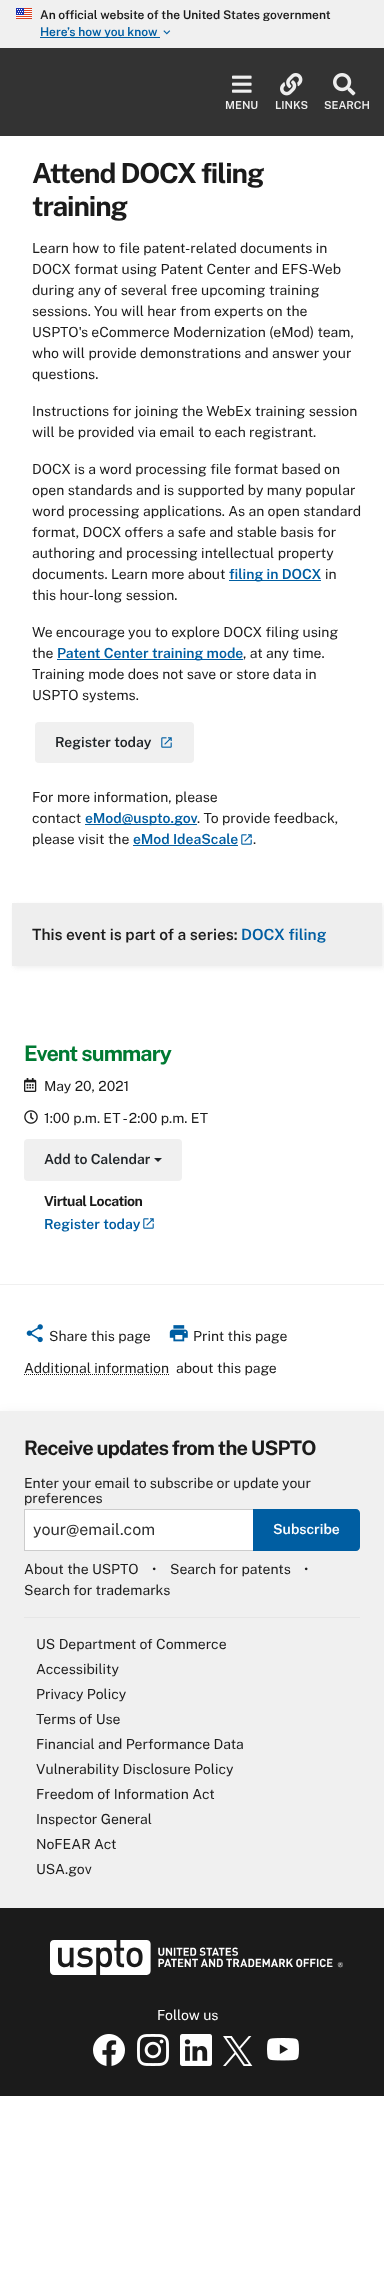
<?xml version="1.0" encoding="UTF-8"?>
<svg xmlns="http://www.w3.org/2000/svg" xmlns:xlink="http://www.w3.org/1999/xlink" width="384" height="2276">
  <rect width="100%" height="100%" fill="#ffffff" />
  <rect width="384" height="48" fill="#f0f0f0" />
  <image x="16" y="8" width="16" height="11" xlink:href="image1.png" />
  <rect x="40" y="37" width="120" height="1" fill="#005ea2" />
  <image x="163" y="30" width="8" height="5" xlink:href="image2.png" />
  <rect y="48" width="384" height="88" fill="#333333" />
  <image x="232" y="75" width="20" height="18" xlink:href="image3.png" />
  <image x="280" y="73" width="23" height="23" xlink:href="image4.png" />
  <image x="333" y="73" width="23" height="23" xlink:href="image5.png" />
  <rect x="229" y="580" width="92" height="1" fill="#005ea2" />
  <rect x="57" y="659" width="186" height="1" fill="#005ea2" />
  <rect x="35" y="722" width="159" height="41" rx="4" fill="#f0f0f0" />
  <image x="161" y="737" width="11" height="11" xlink:href="image6.png" />
  <rect x="85" y="824" width="112" height="1" fill="#005ea2" />
  <rect x="133" y="845" width="105" height="1" fill="#005ea2" />
  <image x="241" y="834" width="11" height="11" xlink:href="image7.png" />
  <rect x="14" y="905" width="370" height="63" fill="#f0f0f0" filter="blur(2.5px)" />
  <rect x="12" y="903" width="370" height="63" fill="#eeeeee" />
  <image x="24" y="1078" width="13" height="14" xlink:href="image8.png" />
  <image x="24" y="1110" width="14" height="14" xlink:href="image9.png" />
  <rect x="24" y="1139" width="158" height="42" rx="4" fill="#f0f0f0" />
  <path d="M 154 1158 h 8 l -4 4 z" fill="#212529" />
  <image x="143" y="1218" width="11" height="11" xlink:href="image7.png" />
  <rect y="1284" width="384" height="1" fill="#f0f0f0" />
  <image x="26" y="1324" width="17" height="19" xlink:href="image10.png" />
  <image x="169" y="1325" width="19" height="17" xlink:href="image11.png" />
  <path d="M 24 1374.5 h 145" fill="none" stroke="#1b1b1b" stroke-dasharray="1 1" />
  <rect y="1419" width="384" height="497" fill="#000000" fill-opacity="0.15" filter="blur(8px)" />
  <rect y="1411" width="384" height="497" fill="#f0f0f0" />
  <rect x="24.5" y="1509.5" width="229" height="41" fill="#ffffff" stroke="#cccccc" />
  <path d="M 253 1509 h 103 c 2 0 4 2 4 4 v 34 c 0 2 -2 4 -4 4 h -103 z" fill="#005ea2" />
  <rect x="24" y="1617" width="336" height="1" fill="#e6e6e6" />
  <rect y="1908" width="384" height="188" fill="#1b1b1b" />
  <image x="50" y="1940" width="293" height="35" xlink:href="image12.png" />
  <image x="93" y="2034" width="32" height="32" xlink:href="image13.png" />
  <image x="137" y="2034" width="32" height="32" xlink:href="image14.png" />
  <image x="180" y="2034" width="32" height="32" xlink:href="image15.png" />
  <image x="223" y="2036" width="30" height="30" xlink:href="image16.png" />
  <image x="267" y="2038" width="32" height="23" xlink:href="image17.png" />
  <text x="40" y="19" style="font-family: Public Sans; font-size: 12px; font-weight: 600; fill: #1b1b1b">An official website of the United States government</text>
  <text x="40" y="36" style="font-family: Public Sans; font-size: 12px; font-weight: 600; fill: #005ea2">Here’s how you know</text>
  <text x="225" y="109" style="font-family: Public Sans; font-size: 11px; font-weight: 600; fill: #eeeeee">MENU</text>
  <text x="275" y="109" style="font-family: Public Sans; font-size: 11px; font-weight: 600; fill: #eeeeee">LINKS</text>
  <text x="324" y="109" style="font-family: Public Sans; font-size: 11px; font-weight: 600; fill: #eeeeee">SEARCH</text>
  <text x="32" y="183" style="font-family: Public Sans; font-size: 27.75px; font-weight: bold; letter-spacing: -1.1px; fill: #1b1b1b">Attend DOCX filing</text>
  <text x="32" y="216" style="font-family: Public Sans; font-size: 27.75px; font-weight: bold; letter-spacing: -1.1px; fill: #1b1b1b">training</text>
  <text x="32" y="253" style="font-family: Public Sans; font-size: 14px; fill: #1b1b1b">Learn how to file patent-related documents in</text>
  <text x="32" y="274" style="font-family: Public Sans; font-size: 14px; fill: #1b1b1b">DOCX format using Patent Center and EFS-Web</text>
  <text x="32" y="295" style="font-family: Public Sans; font-size: 14px; fill: #1b1b1b">during any of several free upcoming training</text>
  <text x="32" y="316" style="font-family: Public Sans; font-size: 14px; fill: #1b1b1b">sessions. You will hear from experts on the</text>
  <text x="32" y="337" style="font-family: Public Sans; font-size: 14px; fill: #1b1b1b">USPTO's eCommerce Modernization (eMod) team,</text>
  <text x="32" y="358" style="font-family: Public Sans; font-size: 14px; fill: #1b1b1b">who will provide demonstrations and answer your</text>
  <text x="32" y="379" style="font-family: Public Sans; font-size: 14px; fill: #1b1b1b">questions.</text>
  <text x="32" y="416" style="font-family: Public Sans; font-size: 14px; fill: #1b1b1b">Instructions for joining the WebEx training session</text>
  <text x="32" y="437" style="font-family: Public Sans; font-size: 14px; fill: #1b1b1b">will be provided via email to each registrant.</text>
  <text x="32" y="474" style="font-family: Public Sans; font-size: 14px; fill: #1b1b1b">DOCX is a word processing file format based on</text>
  <text x="32" y="495" style="font-family: Public Sans; font-size: 14px; fill: #1b1b1b">open standards and is supported by many popular</text>
  <text x="32" y="516" style="font-family: Public Sans; font-size: 14px; fill: #1b1b1b">word processing applications. As an open standard</text>
  <text x="32" y="537" style="font-family: Public Sans; font-size: 14px; fill: #1b1b1b">format, DOCX offers a safe and stable basis for</text>
  <text x="32" y="558" style="font-family: Public Sans; font-size: 14px; fill: #1b1b1b">authoring and processing intellectual property</text>
  <text x="32" y="579" style="font-family: Public Sans; font-size: 14px; fill: #1b1b1b">documents. Learn more about</text>
  <text x="229" y="579" style="font-family: Public Sans; font-size: 14px; font-weight: 600; fill: #005ea2">filing in DOCX</text>
  <text x="325" y="579" style="font-family: Public Sans; font-size: 14px; fill: #1b1b1b">in</text>
  <text x="32" y="600" style="font-family: Public Sans; font-size: 14px; fill: #1b1b1b">this hour-long session.</text>
  <text x="32" y="637" style="font-family: Public Sans; font-size: 14px; fill: #1b1b1b">We encourage you to explore DOCX filing using</text>
  <text x="32" y="658" style="font-family: Public Sans; font-size: 14px; fill: #1b1b1b">the</text>
  <text x="57" y="658" style="font-family: Public Sans; font-size: 14px; font-weight: 600; fill: #005ea2">Patent Center training mode</text>
  <text x="243" y="658" style="font-family: Public Sans; font-size: 14px; fill: #1b1b1b">, at any time.</text>
  <text x="32" y="679" style="font-family: Public Sans; font-size: 14px; fill: #1b1b1b">Training mode does not save or store data in</text>
  <text x="32" y="700" style="font-family: Public Sans; font-size: 14px; fill: #1b1b1b">USPTO systems.</text>
  <text x="55" y="747" style="font-family: Public Sans; font-size: 14px; font-weight: 600; fill: #212529">Register today</text>
  <text x="32" y="802" style="font-family: Public Sans; font-size: 14px; fill: #1b1b1b">For more information, please</text>
  <text x="32" y="823" style="font-family: Public Sans; font-size: 14px; fill: #1b1b1b">contact</text>
  <text x="85" y="823" style="font-family: Public Sans; font-size: 14px; font-weight: 600; fill: #005ea2">eMod@uspto.gov</text>
  <text x="197" y="823" style="font-family: Public Sans; font-size: 14px; fill: #1b1b1b">. To provide feedback,</text>
  <text x="32" y="844" style="font-family: Public Sans; font-size: 14px; fill: #1b1b1b">please visit the</text>
  <text x="133" y="844" style="font-family: Public Sans; font-size: 14px; font-weight: 600; fill: #005ea2">eMod IdeaScale</text>
  <text x="253" y="844" style="font-family: Public Sans; font-size: 14px; fill: #1b1b1b">.</text>
  <text x="32" y="940" style="font-family: Public Sans; font-size: 15.5px; font-weight: 600; fill: #1b1b1b">This event is part of a series:</text>
  <text x="241" y="940" style="font-family: Public Sans; font-size: 15.5px; font-weight: 600; fill: #005ea2">DOCX filing</text>
  <text x="24" y="1061" style="font-family: Public Sans; font-size: 21.5px; font-weight: bold; letter-spacing: -0.9px; fill: #007a33">Event summary</text>
  <text x="44" y="1091" style="font-family: Public Sans; font-size: 14px; fill: #1b1b1b">May 20, 2021</text>
  <text x="44" y="1123" style="font-family: Public Sans; font-size: 14px; fill: #1b1b1b">1:00 p.m. ET - 2:00 p.m. ET</text>
  <text x="44" y="1164" style="font-family: Public Sans; font-size: 14px; font-weight: 600; fill: #212529">Add to Calendar</text>
  <text x="44" y="1206" style="font-family: Public Sans; font-size: 14px; font-weight: bold; letter-spacing: -0.5px; fill: #1b1b1b">Virtual Location</text>
  <text x="44" y="1229" style="font-family: Public Sans; font-size: 14px; font-weight: 600; fill: #005ea2">Register today</text>
  <text x="49" y="1341" style="font-family: Public Sans; font-size: 14px; fill: #1b1b1b">Share this page</text>
  <text x="193" y="1341" style="font-family: Public Sans; font-size: 14px; fill: #1b1b1b">Print this page</text>
  <text x="24" y="1373" style="font-family: Public Sans; font-size: 14px; fill: #1b1b1b">Additional information</text>
  <text x="176" y="1373" style="font-family: Public Sans; font-size: 14px; fill: #1b1b1b">about this page</text>
  <text x="24" y="1455" style="font-family: Public Sans; font-size: 20px; font-weight: bold; letter-spacing: -0.8px; fill: #1b1b1b">Receive updates from the USPTO</text>
  <text x="24" y="1488" style="font-family: Public Sans; font-size: 14px; fill: #1b1b1b">Enter your email to subscribe or update your</text>
  <text x="24" y="1503" style="font-family: Public Sans; font-size: 14px; fill: #1b1b1b">preferences</text>
  <text x="33" y="1535" style="font-family: Public Sans; font-size: 16px; fill: #333333">your@email.com</text>
  <text x="273" y="1534" style="font-family: Public Sans; font-size: 14px; font-weight: 600; fill: #ffffff">Subscribe</text>
  <text x="24" y="1574" style="font-family: Public Sans; font-size: 14px; fill: #1b1b1b">About the USPTO</text>
  <text x="152" y="1574" style="font-family: Public Sans; font-size: 14px; fill: #1b1b1b">•</text>
  <text x="170" y="1574" style="font-family: Public Sans; font-size: 14px; fill: #1b1b1b">Search for patents</text>
  <text x="304" y="1574" style="font-family: Public Sans; font-size: 14px; fill: #1b1b1b">•</text>
  <text x="24" y="1595" style="font-family: Public Sans; font-size: 14px; fill: #1b1b1b">Search for trademarks</text>
  <text x="36" y="1649" style="font-family: Public Sans; font-size: 14px; fill: #1b1b1b">US Department of Commerce</text>
  <text x="36" y="1674" style="font-family: Public Sans; font-size: 14px; fill: #1b1b1b">Accessibility</text>
  <text x="36" y="1699" style="font-family: Public Sans; font-size: 14px; fill: #1b1b1b">Privacy Policy</text>
  <text x="36" y="1724" style="font-family: Public Sans; font-size: 14px; fill: #1b1b1b">Terms of Use</text>
  <text x="36" y="1749" style="font-family: Public Sans; font-size: 14px; fill: #1b1b1b">Financial and Performance Data</text>
  <text x="36" y="1774" style="font-family: Public Sans; font-size: 14px; fill: #1b1b1b">Vulnerability Disclosure Policy</text>
  <text x="36" y="1799" style="font-family: Public Sans; font-size: 14px; fill: #1b1b1b">Freedom of Information Act</text>
  <text x="36" y="1824" style="font-family: Public Sans; font-size: 14px; fill: #1b1b1b">Inspector General</text>
  <text x="36" y="1849" style="font-family: Public Sans; font-size: 14px; fill: #1b1b1b">NoFEAR Act</text>
  <text x="36" y="1874" style="font-family: Public Sans; font-size: 14px; fill: #1b1b1b">USA.gov</text>
  <text x="157" y="2020" style="font-family: Public Sans; font-size: 14px; fill: #ffffff">Follow us</text>
</svg>
